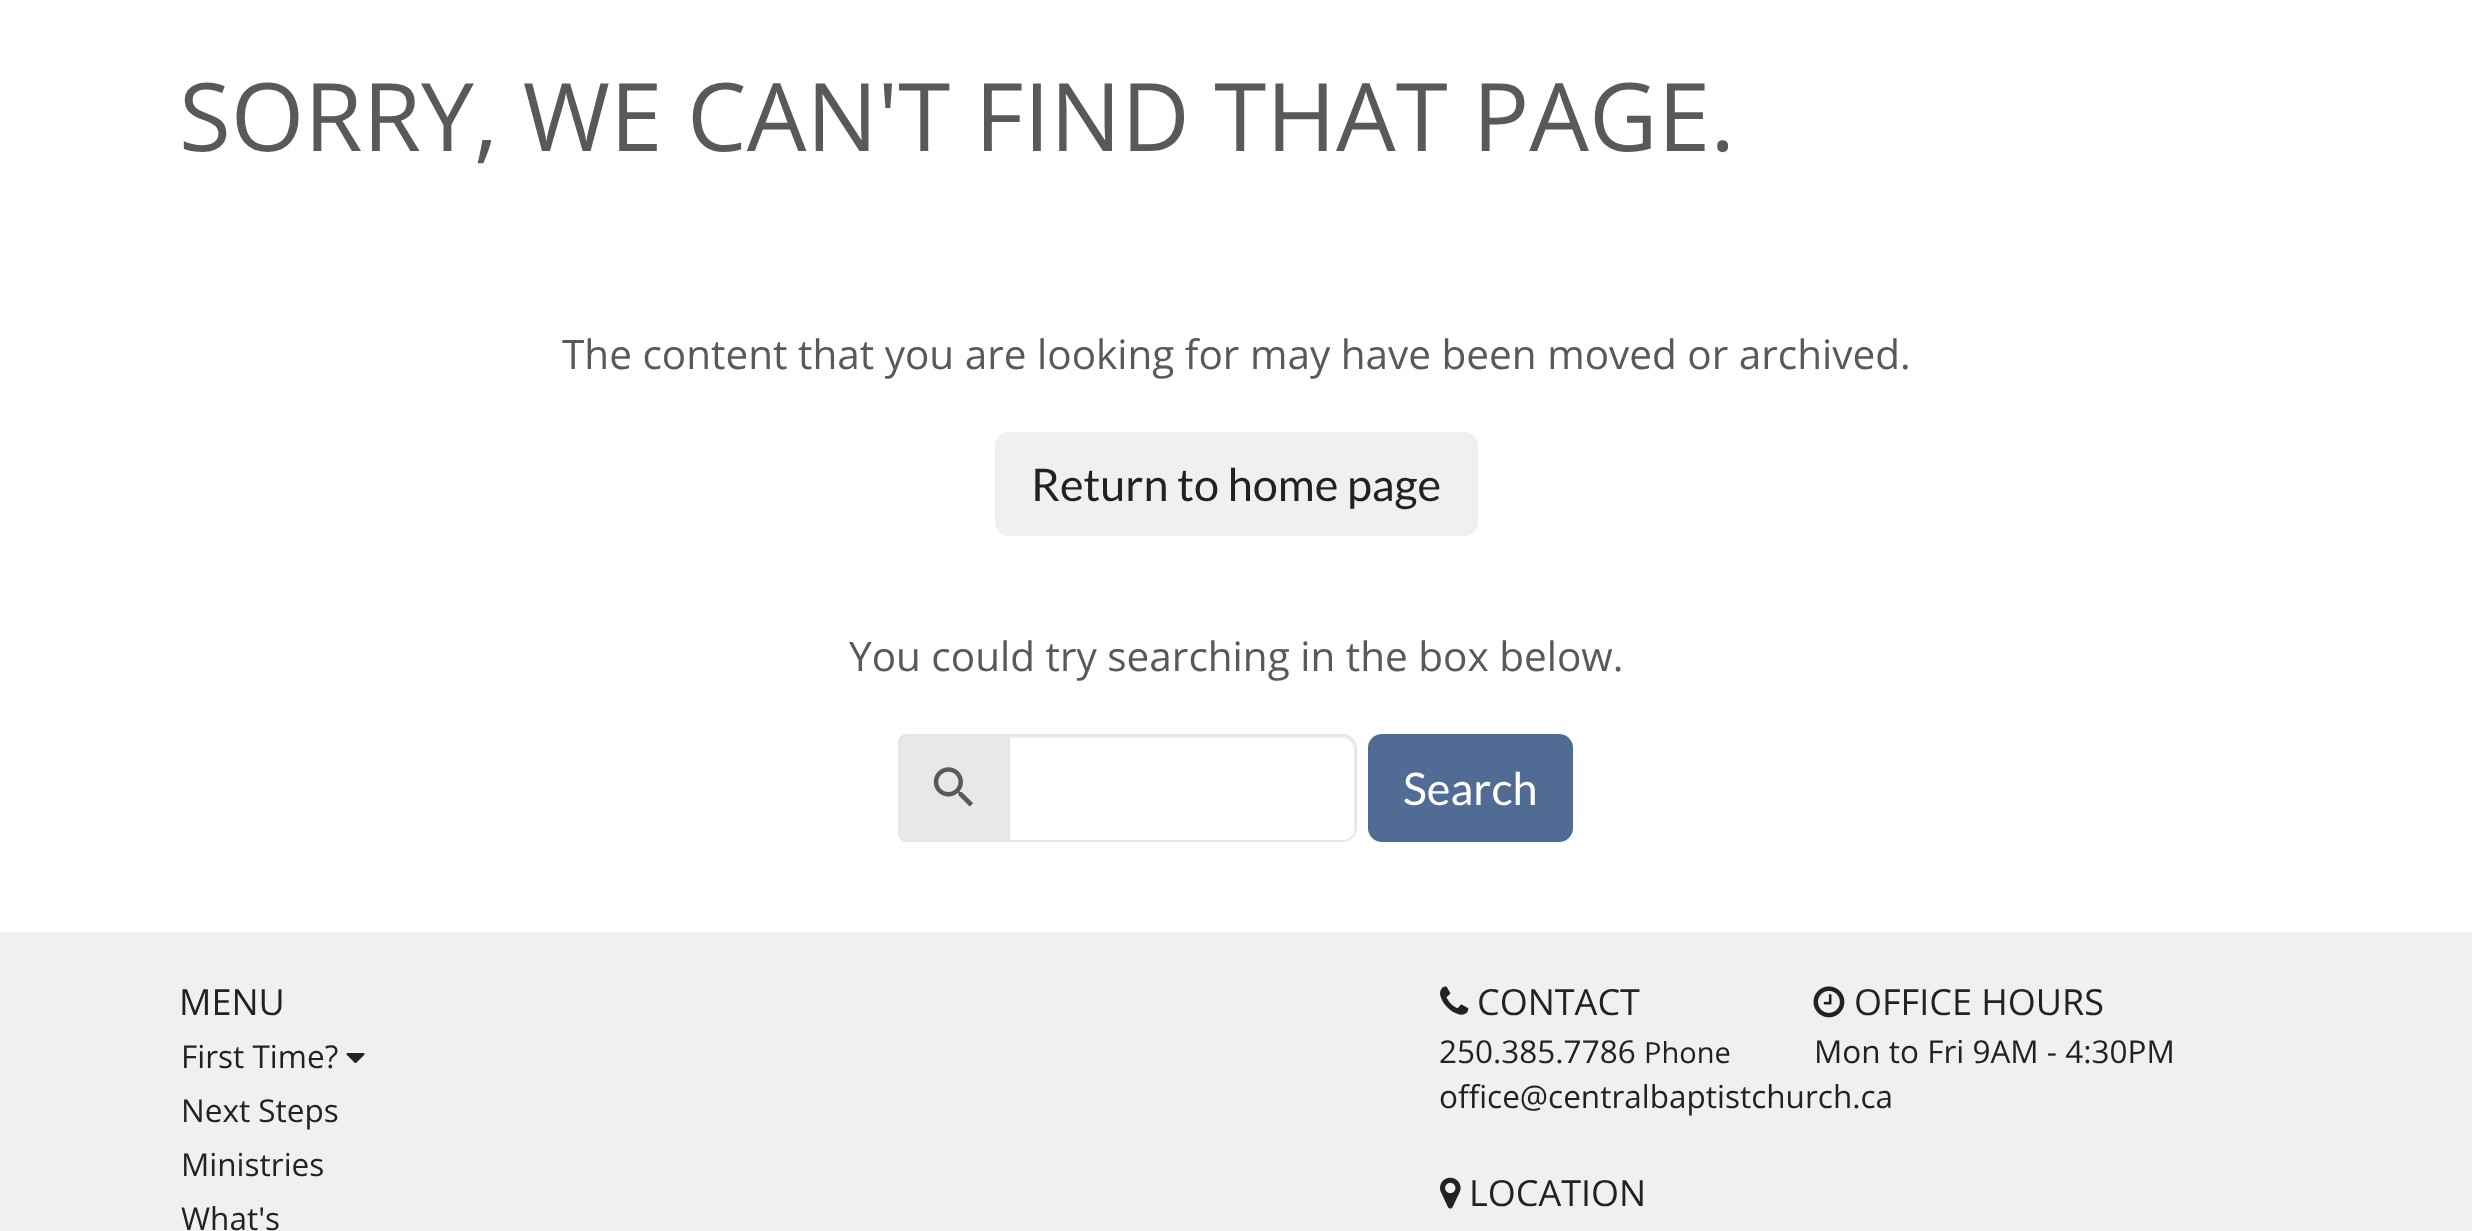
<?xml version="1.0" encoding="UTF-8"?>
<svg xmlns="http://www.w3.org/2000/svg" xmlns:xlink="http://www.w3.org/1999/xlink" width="2472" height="1231">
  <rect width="100%" height="100%" fill="#ffffff" />
  <rect x="995" y="432" width="483" height="104" rx="14" fill="#f0f0f0" />
  <path d="M 907 734 h 101 v 108 h -101 c -5 0 -9 -4 -9 -9 v -90 c 0 -5 4 -9 9 -9 z" fill="#e8e8e8" />
  <path d="M 907 734 h 101 v 108 h -101 c -5 0 -9 -5 -9 -10 v -90 c 0 -4 4 -8 9 -8 z m 0 2 h 101 v 103 h -101 c -4 0 -7 -3 -7 -7 v -90 c 0 -3 3 -6 7 -6 z" fill="#e6e6e6" fill-rule="evenodd" />
  <image x="933" y="767" width="40" height="40" xlink:href="image1.png" />
  <path d="M 1010 738 h 333 c 6 0 11 5 11 11 v 81 l -1 4 c 1 -2 2 -4 2 -6 v -81 c 0 -6 -5 -11 -11 -11 h -334 z" fill="#ececec" />
  <path d="M 1009 735 h 334 c 7 0 13 6 13 13 v 80 c 0 7 -6 13 -13 13 h -334 z" fill="none" stroke="#e6e6e6" stroke-width="2" />
  <rect x="1368" y="734" width="205" height="108" rx="14" fill="#516c94" />
  <rect y="932" width="2472" height="299" fill="#f0f0f0" />
  <image x="346" y="1053" width="19" height="11" xlink:href="image2.png" />
  <image x="1440" y="986" width="29" height="29" xlink:href="image3.png" />
  <image x="1813" y="986" width="32" height="32" xlink:href="image4.png" />
  <image x="1440" y="1177" width="21" height="32" xlink:href="image5.png" />
  <text x="179" y="151" style="font-family: Open Sans; font-size: 94.5px; fill: #595959">SORRY, WE CAN'T FIND THAT PAGE.</text>
  <text x="562" y="369" style="font-family: Open Sans; font-size: 40.5px; fill: #595959">The content that you are looking for may have been moved or archived.</text>
  <text x="1031" y="501" style="font-family: Lato; font-size: 45px; fill: #222222">Return to home page</text>
  <text x="849" y="671" style="font-family: Open Sans; font-size: 40.5px; fill: #595959">You could try searching in the box below.</text>
  <text x="1403" y="805" style="font-family: Lato; font-size: 45px; fill: #ffffff">Search</text>
  <text x="179" y="1015" style="font-family: Open Sans; font-size: 36px; fill: #222222">MENU</text>
  <text x="181" y="1068" style="font-family: Open Sans; font-size: 31.5px; fill: #222222">First Time?</text>
  <text x="181" y="1122" style="font-family: Open Sans; font-size: 31.5px; fill: #222222">Next Steps</text>
  <text x="181" y="1176" style="font-family: Open Sans; font-size: 31.5px; fill: #222222">Ministries</text>
  <text x="181" y="1230" style="font-family: Open Sans; font-size: 31.5px; fill: #222222">What's</text>
  <text x="1477" y="1015" style="font-family: Open Sans; font-size: 36px; fill: #222222">CONTACT</text>
  <text x="1439" y="1063" style="font-family: Open Sans; font-size: 31.5px; fill: #222222">250.385.7786</text>
  <text x="1644" y="1063" style="font-family: Open Sans; font-size: 29px; fill: #222222">Phone</text>
  <text x="1439" y="1108" style="font-family: Open Sans; font-size: 31.5px; fill: #222222">office@centralbaptistchurch.ca</text>
  <text x="1854" y="1015" style="font-family: Open Sans; font-size: 36px; fill: #222222">OFFICE HOURS</text>
  <text x="1814" y="1063" style="font-family: Open Sans; font-size: 31.5px; fill: #222222">Mon to Fri 9AM - 4:30PM</text>
  <text x="1469" y="1206" style="font-family: Open Sans; font-size: 36px; fill: #222222">LOCATION</text>
</svg>
